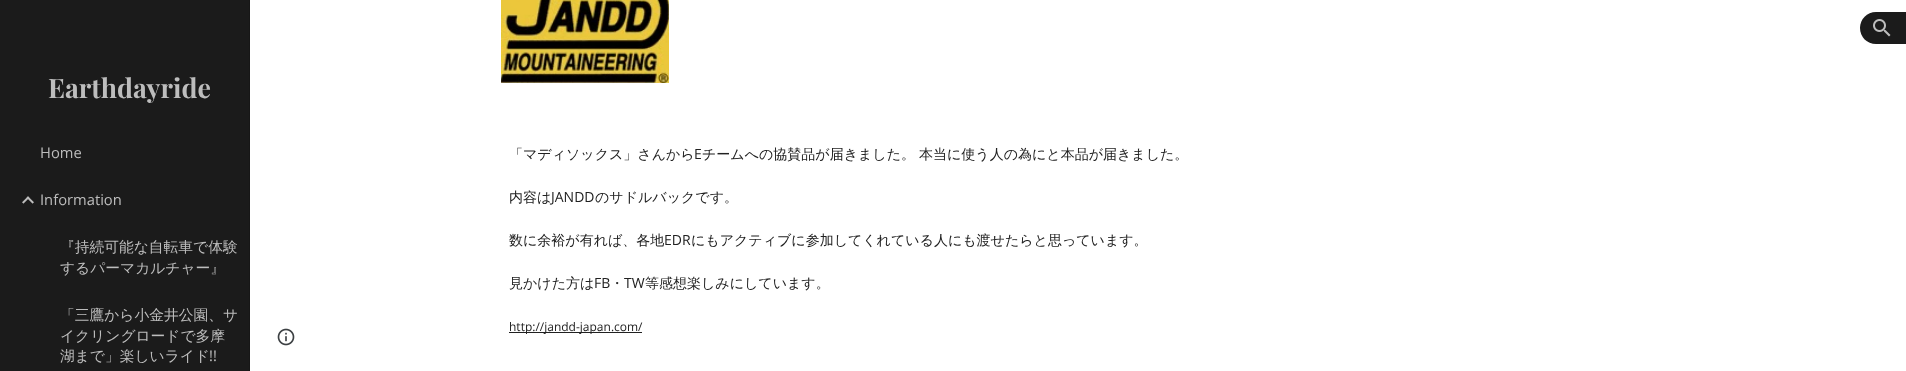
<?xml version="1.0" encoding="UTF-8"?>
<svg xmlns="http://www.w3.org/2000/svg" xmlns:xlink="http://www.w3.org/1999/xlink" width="1906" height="371">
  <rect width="100%" height="100%" fill="#ffffff" />
  <path d="M 1876 12 h 30 v 32 h -30 c -9 0 -16 -7 -16 -16 c 0 -9 7 -16 16 -16 z" fill="#1b1b1b" />
  <image x="1873" y="19" width="18" height="18" xlink:href="image1.png" />
  <rect width="249" height="371" fill="#1b1b1b" />
  <rect x="249" width="1" height="371" fill="#171717" />
  <image x="22" y="196" width="12" height="8" xlink:href="image2.png" />
  <image x="501" y="0" width="168" height="83" xlink:href="image3.png" />
  <rect x="509" y="332" width="133" height="1" fill="#212121" />
  <image x="277" y="328" width="18" height="18" xlink:href="image4.png" />
  <text x="48" y="98" style="font-family: Playfair Display; font-size: 26.75px; font-weight: bold; fill: #bdbdbd">Earthdayride</text>
  <text x="40" y="158" style="font-family: Open Sans; font-size: 14.75px; fill: #bdbdbd">Home</text>
  <text x="40" y="205" style="font-family: Open Sans; font-size: 14.75px; fill: #bdbdbd">Information</text>
  <text x="60" y="252" style="font-family: WenQuanYi Zen Hei; font-size: 14.75px; font-weight: 500; fill: #bdbdbd">『持続可能な自転車で体験</text>
  <text x="60" y="273" style="font-family: WenQuanYi Zen Hei; font-size: 14.75px; font-weight: 500; fill: #bdbdbd">するパーマカルチャー』</text>
  <text x="60" y="320" style="font-family: WenQuanYi Zen Hei; font-size: 14.75px; font-weight: 500; fill: #bdbdbd">「三鷹から小金井公園、サ</text>
  <text x="60" y="341" style="font-family: WenQuanYi Zen Hei; font-size: 14.75px; font-weight: 500; fill: #bdbdbd">イクリングロードで多摩</text>
  <text x="60" y="361" style="font-family: WenQuanYi Zen Hei; font-size: 14.75px; font-weight: 500; fill: #bdbdbd">湖まで」楽しいライド</text>
  <text x="209" y="361" style="font-family: Open Sans; font-size: 14.75px; fill: #bdbdbd">!!</text>
  <text x="509" y="159" style="font-family: WenQuanYi Zen Hei; font-size: 14px; font-weight: 500; fill: #212121">「マディソックス」さんから</text>
  <text x="694" y="159" style="font-family: Open Sans; font-size: 14px; fill: #212121">E</text>
  <text x="702" y="159" style="font-family: WenQuanYi Zen Hei; font-size: 14px; font-weight: 500; fill: #212121">チームへの協賛品が届きました。</text>
  <text x="919" y="159" style="font-family: WenQuanYi Zen Hei; font-size: 14px; font-weight: 500; fill: #212121">本当に使う人の為にと本品が届きました。</text>
  <text x="509" y="202" style="font-family: WenQuanYi Zen Hei; font-size: 14px; font-weight: 500; fill: #212121">内容は</text>
  <text x="551" y="202" style="font-family: Open Sans; font-size: 14px; fill: #212121">JANDD</text>
  <text x="595" y="202" style="font-family: WenQuanYi Zen Hei; font-size: 14px; font-weight: 500; fill: #212121">のサドルバックです。</text>
  <text x="509" y="245" style="font-family: WenQuanYi Zen Hei; font-size: 14px; font-weight: 500; fill: #212121">数に余裕が有れば、各地</text>
  <text x="664" y="245" style="font-family: Open Sans; font-size: 14px; fill: #212121">EDR</text>
  <text x="691" y="245" style="font-family: WenQuanYi Zen Hei; font-size: 14px; font-weight: 500; fill: #212121">にもアクティブに参加してくれている人にも渡せたらと思っています。</text>
  <text x="509" y="288" style="font-family: WenQuanYi Zen Hei; font-size: 14px; font-weight: 500; fill: #212121">見かけた方は</text>
  <text x="594" y="288" style="font-family: Open Sans; font-size: 14px; fill: #212121">FB</text>
  <text x="610" y="288" style="font-family: WenQuanYi Zen Hei; font-size: 14px; font-weight: 500; fill: #212121">・</text>
  <text x="624" y="288" style="font-family: Open Sans; font-size: 14px; fill: #212121">TW</text>
  <text x="645" y="288" style="font-family: WenQuanYi Zen Hei; font-size: 14px; font-weight: 500; fill: #212121">等感想楽しみにしています。</text>
  <text x="509" y="331" style="font-family: Open Sans; font-size: 12px; fill: #212121">http://jandd-japan.com/</text>
</svg>
